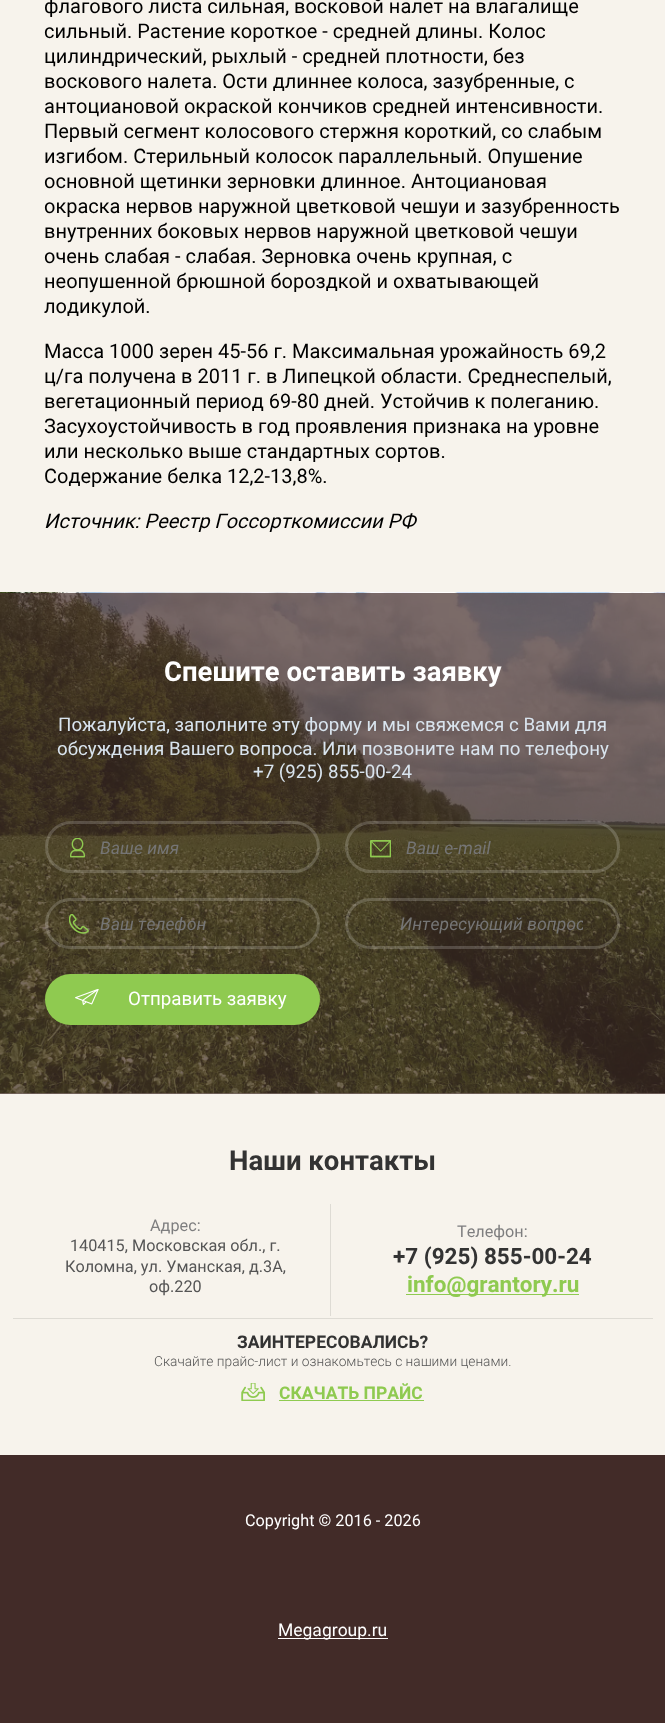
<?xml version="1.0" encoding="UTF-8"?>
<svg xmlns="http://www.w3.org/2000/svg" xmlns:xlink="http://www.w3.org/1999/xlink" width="665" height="1723">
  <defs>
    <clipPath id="clip1"><rect x="400" y="914" width="183" height="20" /></clipPath>
  </defs>
  <rect width="100%" height="100%" fill="#f7f3ec" />
  <rect y="1093" width="665" height="1" fill="#786763" />
  <image x="0" y="592" width="665" height="502" xlink:href="image1.png" />
  <image x="70" y="838" width="15" height="20" xlink:href="image2.png" />
  <rect x="46.5" y="822.5" width="272" height="49" rx="24.5" fill="none" stroke="#ffffff" stroke-opacity="0.18" stroke-width="3" />
  <image x="370" y="840" width="21" height="18" xlink:href="image3.png" />
  <rect x="346.5" y="822.5" width="272" height="49" rx="24.5" fill="none" stroke="#ffffff" stroke-opacity="0.18" stroke-width="3" />
  <image x="69" y="914" width="20" height="20" xlink:href="image4.png" />
  <rect x="46.5" y="899.5" width="272" height="48" rx="24" fill="none" stroke="#ffffff" stroke-opacity="0.18" stroke-width="3" />
  <rect x="346.5" y="899.5" width="272" height="48" rx="24" fill="none" stroke="#ffffff" stroke-opacity="0.18" stroke-width="3" />
  <rect x="45" y="974" width="275" height="51" rx="25.5" fill="#8fca50" />
  <image x="75" y="989" width="24" height="16" xlink:href="image5.png" />
  <rect x="330" y="1204" width="1" height="112" fill="#dedbd4" />
  <rect x="406" y="1294" width="173" height="1" fill="#8fca50" />
  <rect x="13" y="1318" width="640" height="1" fill="#dedbd4" />
  <image x="241" y="1383" width="24" height="18" xlink:href="image6.png" />
  <rect x="279" y="1400" width="145" height="1" fill="#8fca50" />
  <rect y="1455" width="665" height="268" fill="#422b28" />
  <rect x="278" y="1638" width="110" height="1" fill="#ffffff" />
  <text x="44" y="13" style="font-family: Roboto; font-size: 20px; fill: #000000">флагового листа сильная, восковой налет на влагалище</text>
  <text x="44" y="38" style="font-family: Roboto; font-size: 20px; fill: #000000">сильный. Растение короткое - средней длины. Колос</text>
  <text x="44" y="63" style="font-family: Roboto; font-size: 20px; fill: #000000">цилиндрический, рыхлый - средней плотности, без</text>
  <text x="44" y="88" style="font-family: Roboto; font-size: 20px; fill: #000000">воскового налета. Ости длиннее колоса, зазубренные, с</text>
  <text x="44" y="113" style="font-family: Roboto; font-size: 20px; fill: #000000">антоциановой окраской кончиков средней интенсивности.</text>
  <text x="44" y="138" style="font-family: Roboto; font-size: 20px; fill: #000000">Первый сегмент колосового стержня короткий, со слабым</text>
  <text x="44" y="163" style="font-family: Roboto; font-size: 20px; fill: #000000">изгибом. Стерильный колосок параллельный. Опушение</text>
  <text x="44" y="188" style="font-family: Roboto; font-size: 20px; fill: #000000">основной щетинки зерновки длинное. Антоциановая</text>
  <text x="44" y="213" style="font-family: Roboto; font-size: 20px; fill: #000000">окраска нервов наружной цветковой чешуи и зазубренность</text>
  <text x="44" y="238" style="font-family: Roboto; font-size: 20px; fill: #000000">внутренних боковых нервов наружной цветковой чешуи</text>
  <text x="44" y="263" style="font-family: Roboto; font-size: 20px; fill: #000000">очень слабая - слабая. Зерновка очень крупная, с</text>
  <text x="44" y="288" style="font-family: Roboto; font-size: 20px; fill: #000000">неопушенной брюшной бороздкой и охватывающей</text>
  <text x="44" y="313" style="font-family: Roboto; font-size: 20px; fill: #000000">лодикулой.</text>
  <text x="44" y="358" style="font-family: Roboto; font-size: 20px; fill: #000000">Масса 1000 зерен 45-56 г. Максимальная урожайность 69,2</text>
  <text x="44" y="383" style="font-family: Roboto; font-size: 20px; fill: #000000">ц/га получена в 2011 г. в Липецкой области. Среднеспелый,</text>
  <text x="44" y="408" style="font-family: Roboto; font-size: 20px; fill: #000000">вегетационный период 69-80 дней. Устойчив к полеганию.</text>
  <text x="44" y="433" style="font-family: Roboto; font-size: 20px; fill: #000000">Засухоустойчивость в год проявления признака на уровне</text>
  <text x="44" y="458" style="font-family: Roboto; font-size: 20px; fill: #000000">или несколько выше стандартных сортов.</text>
  <text x="44" y="483" style="font-family: Roboto; font-size: 20px; fill: #000000">Содержание белка 12,2-13,8%.</text>
  <text x="44" y="528" style="font-family: Roboto; font-size: 20px; font-style: italic; fill: #000000">Источник: Реестр Госсорткомиссии РФ</text>
  <text x="164" y="681" style="font-family: Roboto; font-size: 27.5px; font-weight: bold; fill: #ffffff">Спешите оставить заявку</text>
  <text x="58" y="731" style="font-family: Roboto; font-size: 18.75px; fill: #d9e4ee">Пожалуйста, заполните эту форму и мы свяжемся с Вами для</text>
  <text x="57" y="755" style="font-family: Roboto; font-size: 18.75px; fill: #d9e4ee">обсуждения Вашего вопроса. Или позвоните нам по телефону</text>
  <text x="253" y="778" style="font-family: Roboto; font-size: 18.75px; fill: #d9e4ee">+7 (925) 855-00-24</text>
  <text x="100" y="854" style="font-family: 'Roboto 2'; font-size: 17.5px; font-style: italic; fill: #757575">Ваше имя</text>
  <text x="406" y="854" style="font-family: 'Roboto 2'; font-size: 17.5px; font-style: italic; fill: #757575">Ваш e-mail</text>
  <text x="100" y="930" style="font-family: 'Roboto 2'; font-size: 17.5px; font-style: italic; fill: #757575">Ваш телефон</text>
  <g clip-path="url(#clip1)">
    <text x="400" y="930" style="font-family: 'Roboto 2'; font-size: 17.5px; font-style: italic; fill: #757575">Интересующий вопрос</text>
  </g>
  <text x="128" y="1005" style="font-family: Roboto; font-size: 18.75px; fill: #ffffff">Отправить заявку</text>
  <text x="229" y="1170" style="font-family: Roboto; font-size: 27.5px; font-weight: bold; fill: #333333">Наши контакты</text>
  <text x="150" y="1231" style="font-family: Roboto; font-size: 16.25px; fill: #7e7e7f">Адрес:</text>
  <text x="70" y="1251" style="font-family: Roboto; font-size: 16.25px; fill: #555555">140415, Московская обл., г.</text>
  <text x="65" y="1272" style="font-family: Roboto; font-size: 16.25px; fill: #555555">Коломна, ул. Уманская, д.3А,</text>
  <text x="149" y="1292" style="font-family: Roboto; font-size: 16.25px; fill: #555555">оф.220</text>
  <text x="457" y="1237" style="font-family: Roboto; font-size: 16.25px; fill: #7e7e7f">Телефон:</text>
  <text x="393" y="1264" style="font-family: Roboto; font-size: 22.5px; font-weight: bold; fill: #333333">+7 (925) 855-00-24</text>
  <text x="407" y="1292" style="font-family: Roboto; font-size: 22.5px; font-weight: bold; fill: #8fca50">info@grantory.ru</text>
  <text x="237" y="1348" style="font-family: Roboto; font-size: 17.5px; font-weight: bold; fill: #333333">ЗАИНТЕРЕСОВАЛИСЬ?</text>
  <text x="154" y="1366" style="font-family: Roboto; font-size: 13.75px; font-weight: 300; fill: #555555">Скачайте прайс-лист и ознакомьтесь с нашими ценами.</text>
  <text x="279" y="1399" style="font-family: Roboto; font-size: 17.5px; font-weight: bold; fill: #8fca50">СКАЧАТЬ ПРАЙС</text>
  <text x="245" y="1526" style="font-family: Roboto; font-size: 16.25px; fill: #ffffff">Copyright © 2016 - 2026</text>
  <text x="278" y="1636" style="font-family: Roboto; font-size: 17.5px; fill: #ffffff">Megagroup.ru</text>
</svg>
